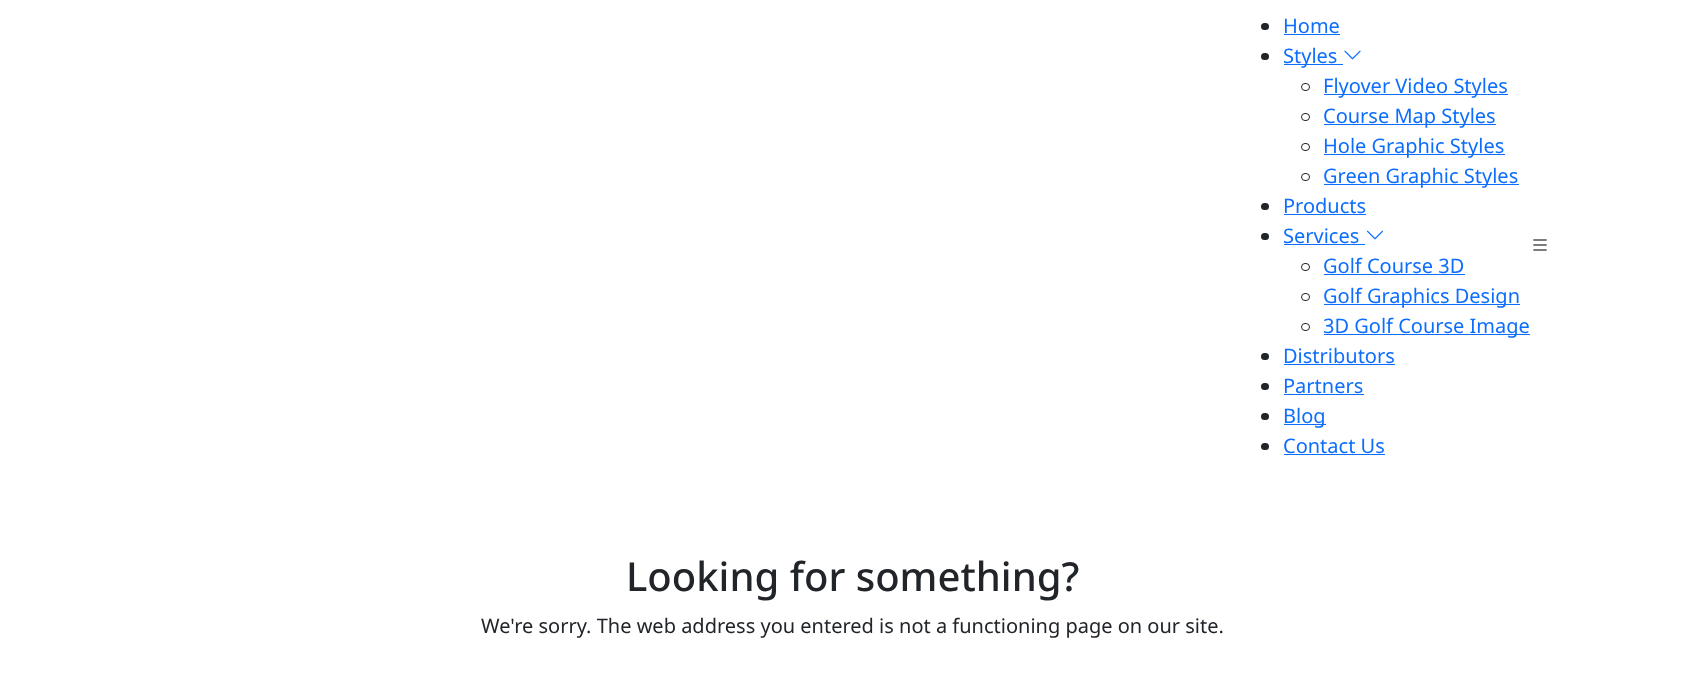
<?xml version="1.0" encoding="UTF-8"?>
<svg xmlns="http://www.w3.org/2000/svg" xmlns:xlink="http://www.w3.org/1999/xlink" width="1705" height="675">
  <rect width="100%" height="100%" fill="#ffffff" />
  <rect x="1261" y="23" width="8" height="7" rx="3.5" fill="#212529" />
  <rect x="1284" y="34" width="56" height="1" fill="#0d6efd" />
  <rect x="1261" y="53" width="8" height="7" rx="3.5" fill="#212529" />
  <rect x="1284" y="64" width="59" height="1" fill="#0d6efd" />
  <image x="1344" y="50" width="17" height="10" xlink:href="image1.png" />
  <rect x="1301.5" y="83.5" width="8" height="7" rx="3.5" fill="none" stroke="#212529" />
  <rect x="1324" y="94" width="184" height="1" fill="#0d6efd" />
  <rect x="1301.5" y="113.5" width="8" height="7" rx="3.5" fill="none" stroke="#212529" />
  <rect x="1324" y="124" width="172" height="1" fill="#0d6efd" />
  <rect x="1301.5" y="143.5" width="8" height="7" rx="3.5" fill="none" stroke="#212529" />
  <rect x="1324" y="154" width="181" height="1" fill="#0d6efd" />
  <rect x="1301.5" y="173.5" width="8" height="7" rx="3.5" fill="none" stroke="#212529" />
  <rect x="1324" y="184" width="195" height="1" fill="#0d6efd" />
  <rect x="1261" y="203" width="8" height="7" rx="3.5" fill="#212529" />
  <rect x="1284" y="214" width="82" height="1" fill="#0d6efd" />
  <rect x="1261" y="233" width="8" height="7" rx="3.5" fill="#212529" />
  <rect x="1284" y="244" width="81" height="1" fill="#0d6efd" />
  <image x="1366" y="230" width="18" height="10" xlink:href="image2.png" />
  <rect x="1301.5" y="263.5" width="8" height="7" rx="3.5" fill="none" stroke="#212529" />
  <rect x="1324" y="274" width="141" height="1" fill="#0d6efd" />
  <rect x="1301.5" y="293.5" width="8" height="7" rx="3.5" fill="none" stroke="#212529" />
  <rect x="1324" y="304" width="196" height="1" fill="#0d6efd" />
  <rect x="1301.5" y="323.5" width="8" height="7" rx="3.5" fill="none" stroke="#212529" />
  <rect x="1324" y="334" width="206" height="1" fill="#0d6efd" />
  <rect x="1261" y="353" width="8" height="7" rx="3.5" fill="#212529" />
  <rect x="1284" y="364" width="111" height="1" fill="#0d6efd" />
  <rect x="1261" y="383" width="8" height="7" rx="3.5" fill="#212529" />
  <rect x="1284" y="394" width="80" height="1" fill="#0d6efd" />
  <rect x="1261" y="413" width="8" height="7" rx="3.5" fill="#212529" />
  <rect x="1284" y="424" width="42" height="1" fill="#0d6efd" />
  <rect x="1261" y="443" width="8" height="7" rx="3.5" fill="#212529" />
  <rect x="1284" y="454" width="101" height="1" fill="#0d6efd" />
  <image x="1533" y="239" width="14" height="12" xlink:href="image3.png" />
  <text x="1283" y="33" style="font-family: Noto Sans; font-size: 20px; fill: #0d6efd">Home</text>
  <text x="1283" y="63" style="font-family: Noto Sans; font-size: 20px; fill: #0d6efd">Styles</text>
  <text x="1323" y="93" style="font-family: Noto Sans; font-size: 20px; fill: #0d6efd">Flyover Video Styles</text>
  <text x="1323" y="123" style="font-family: Noto Sans; font-size: 20px; fill: #0d6efd">Course Map Styles</text>
  <text x="1323" y="153" style="font-family: Noto Sans; font-size: 20px; fill: #0d6efd">Hole Graphic Styles</text>
  <text x="1323" y="183" style="font-family: Noto Sans; font-size: 20px; fill: #0d6efd">Green Graphic Styles</text>
  <text x="1283" y="213" style="font-family: Noto Sans; font-size: 20px; fill: #0d6efd">Products</text>
  <text x="1283" y="243" style="font-family: Noto Sans; font-size: 20px; fill: #0d6efd">Services</text>
  <text x="1323" y="273" style="font-family: Noto Sans; font-size: 20px; fill: #0d6efd">Golf Course 3D</text>
  <text x="1323" y="303" style="font-family: Noto Sans; font-size: 20px; fill: #0d6efd">Golf Graphics Design</text>
  <text x="1323" y="333" style="font-family: Noto Sans; font-size: 20px; fill: #0d6efd">3D Golf Course Image</text>
  <text x="1283" y="363" style="font-family: Noto Sans; font-size: 20px; fill: #0d6efd">Distributors</text>
  <text x="1283" y="393" style="font-family: Noto Sans; font-size: 20px; fill: #0d6efd">Partners</text>
  <text x="1283" y="423" style="font-family: Noto Sans; font-size: 20px; fill: #0d6efd">Blog</text>
  <text x="1283" y="453" style="font-family: Noto Sans; font-size: 20px; fill: #0d6efd">Contact Us</text>
  <text x="626" y="591" style="font-family: Noto Sans; font-size: 40px; font-weight: 500; fill: #212529">Looking for something?</text>
  <text x="481" y="633" style="font-family: Noto Sans; font-size: 20px; fill: #212529">We're sorry. The web address you entered is not a functioning page on our site.</text>
</svg>
